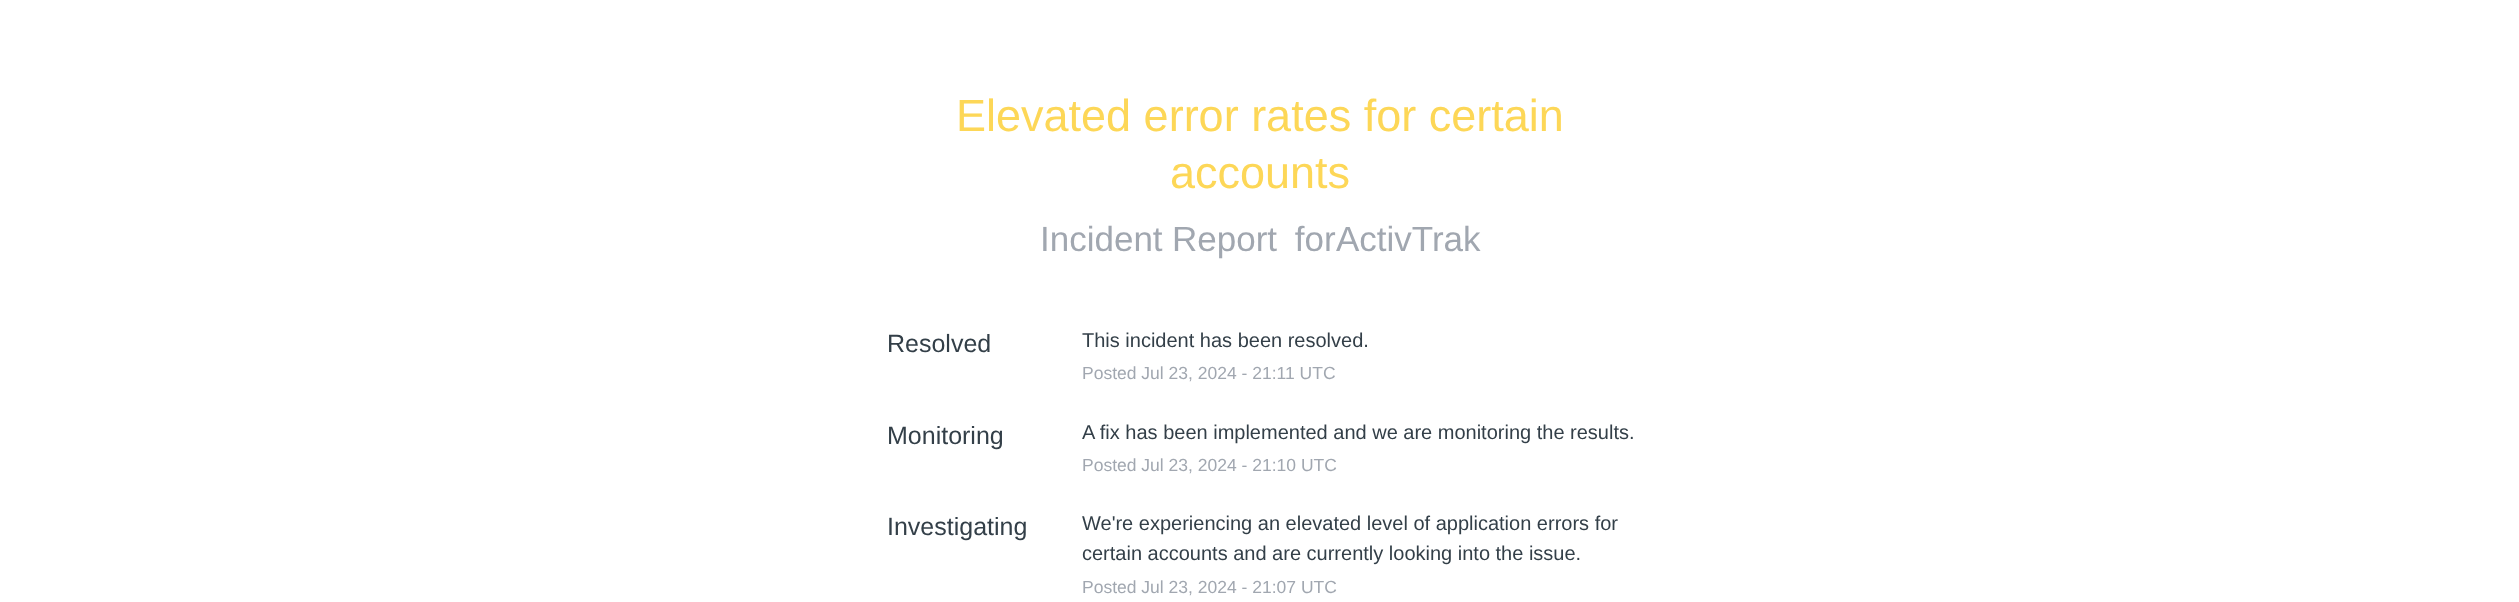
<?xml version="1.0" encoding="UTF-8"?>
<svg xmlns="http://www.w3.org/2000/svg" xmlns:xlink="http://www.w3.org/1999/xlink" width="2519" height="602">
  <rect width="100%" height="100%" fill="#ffffff" />
  <text x="956" y="131" style="font-family: Liberation Sans; font-size: 45px; fill: #fdd757">Elevated error rates for certain</text>
  <text x="1170" y="188" style="font-family: Liberation Sans; font-size: 45px; fill: #fdd757">accounts</text>
  <text x="1040" y="251" style="font-family: Liberation Sans; font-size: 35px; fill: #a1a7b0">Incident</text>
  <text x="1172" y="251" word-spacing="8" style="font-family: Liberation Sans; font-size: 35px; fill: #a1a7b0">Report for</text>
  <text x="1336" y="251" style="font-family: Liberation Sans; font-size: 35px; fill: #a1a7b0">ActivTrak</text>
  <text x="887" y="352" style="font-family: Liberation Sans; font-size: 25px; fill: #333f48">Resolved</text>
  <text x="1082" y="347" style="font-family: Liberation Sans; font-size: 20px; fill: #333f48">This incident has been resolved.</text>
  <text x="1082" y="379" style="font-family: Liberation Sans; font-size: 17.5px; fill: #a1a7b0">Posted Jul 23, 2024 - 21:11 UTC</text>
  <text x="887" y="444" style="font-family: Liberation Sans; font-size: 25px; fill: #333f48">Monitoring</text>
  <text x="1082" y="439" style="font-family: Liberation Sans; font-size: 20px; fill: #333f48">A fix has been implemented and we are monitoring the results.</text>
  <text x="1082" y="471" style="font-family: Liberation Sans; font-size: 17.5px; fill: #a1a7b0">Posted Jul 23, 2024 - 21:10 UTC</text>
  <text x="887" y="535" style="font-family: Liberation Sans; font-size: 25px; fill: #333f48">Investigating</text>
  <text x="1082" y="530" style="font-family: Liberation Sans; font-size: 20px; fill: #333f48">We're experiencing an elevated level of application errors for</text>
  <text x="1082" y="560" style="font-family: Liberation Sans; font-size: 20px; fill: #333f48">certain accounts and are currently looking into the issue.</text>
  <text x="1082" y="593" style="font-family: Liberation Sans; font-size: 17.5px; fill: #a1a7b0">Posted Jul 23, 2024 - 21:07 UTC</text>
</svg>
